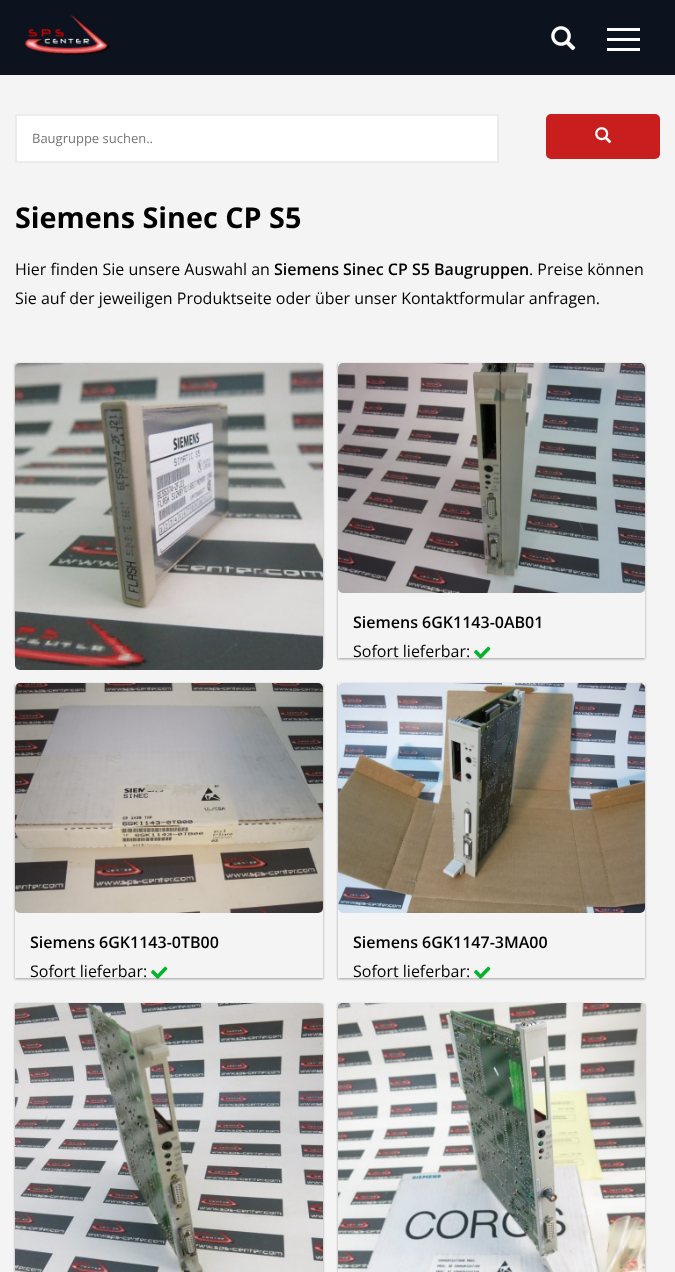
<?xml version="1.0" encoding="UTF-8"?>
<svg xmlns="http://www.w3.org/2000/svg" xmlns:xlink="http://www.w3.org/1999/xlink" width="675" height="1272">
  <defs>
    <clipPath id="clip1"><path d="M 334 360 h 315 v 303 h -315 z m 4 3 h 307 v 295 h -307 z" clip-rule="evenodd" /></clipPath>
    <clipPath id="clip2"><path d="M 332 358 h 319 v 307 h -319 z m 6 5 h 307 v 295 h -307 z" clip-rule="evenodd" /></clipPath>
    <clipPath id="clip3"><path d="M 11 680 h 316 v 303 h -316 z m 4 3 h 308 v 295 h -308 z" clip-rule="evenodd" /></clipPath>
    <clipPath id="clip4"><path d="M 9 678 h 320 v 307 h -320 z m 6 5 h 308 v 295 h -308 z" clip-rule="evenodd" /></clipPath>
    <clipPath id="clip5"><path d="M 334 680 h 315 v 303 h -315 z m 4 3 h 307 v 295 h -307 z" clip-rule="evenodd" /></clipPath>
    <clipPath id="clip6"><path d="M 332 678 h 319 v 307 h -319 z m 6 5 h 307 v 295 h -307 z" clip-rule="evenodd" /></clipPath>
  </defs>
  <rect width="100%" height="100%" fill="#f4f4f4" />
  <rect width="675" height="75" fill="#0c131f" />
  <image x="25" y="15" width="85" height="40" xlink:href="image1.png" />
  <rect x="607" y="28" width="33" height="3" fill="#ffffff" />
  <rect x="607" y="38" width="33" height="3" fill="#ffffff" />
  <rect x="607" y="48" width="33" height="3" fill="#ffffff" />
  <image x="551" y="26" width="25" height="25" xlink:href="image2.png" />
  <rect x="16" y="115" width="482" height="47" fill="#ffffff" stroke="#ebebeb" stroke-width="2" />
  <rect x="546" y="114" width="114" height="45" rx="5" fill="#c91e1e" />
  <image x="595" y="127" width="17" height="17" xlink:href="image3.png" />
  <rect x="15" y="364" width="308" height="295" fill="#000000" fill-opacity="0.24" filter="blur(1px)" />
  <rect x="15" y="364" width="308" height="295" fill="#000000" fill-opacity="0.12" filter="blur(1.5px)" />
  <image x="15" y="363" width="308" height="307" xlink:href="image4.png" />
  <g clip-path="url(#clip1)">
    <rect x="338" y="364" width="307" height="295" fill="#000000" fill-opacity="0.24" filter="blur(1px)" />
  </g>
  <g clip-path="url(#clip2)">
    <rect x="338" y="364" width="307" height="295" fill="#000000" fill-opacity="0.12" filter="blur(1.5px)" />
  </g>
  <image x="338" y="363" width="307" height="230" xlink:href="image5.png" />
  <image x="474" y="646" width="17" height="13" xlink:href="image6.png" />
  <g clip-path="url(#clip3)">
    <rect x="15" y="684" width="308" height="295" fill="#000000" fill-opacity="0.24" filter="blur(1px)" />
  </g>
  <g clip-path="url(#clip4)">
    <rect x="15" y="684" width="308" height="295" fill="#000000" fill-opacity="0.12" filter="blur(1.5px)" />
  </g>
  <image x="15" y="683" width="308" height="230" xlink:href="image7.png" />
  <image x="151" y="966" width="17" height="13" xlink:href="image6.png" />
  <g clip-path="url(#clip5)">
    <rect x="338" y="684" width="307" height="295" fill="#000000" fill-opacity="0.24" filter="blur(1px)" />
  </g>
  <g clip-path="url(#clip6)">
    <rect x="338" y="684" width="307" height="295" fill="#000000" fill-opacity="0.12" filter="blur(1.5px)" />
  </g>
  <image x="338" y="683" width="307" height="230" xlink:href="image8.png" />
  <image x="474" y="966" width="17" height="13" xlink:href="image6.png" />
  <rect x="15" y="1004" width="308" height="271" fill="#000000" fill-opacity="0.24" filter="blur(1px)" />
  <rect x="15" y="1004" width="308" height="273" fill="#000000" fill-opacity="0.12" filter="blur(1.5px)" />
  <image x="15" y="1003" width="308" height="269" xlink:href="image9.png" />
  <rect x="338" y="1004" width="307" height="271" fill="#000000" fill-opacity="0.24" filter="blur(1px)" />
  <rect x="338" y="1004" width="307" height="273" fill="#000000" fill-opacity="0.12" filter="blur(1.5px)" />
  <image x="338" y="1003" width="307" height="269" xlink:href="image10.png" />
  <text x="32" y="143" style="font-family: Open Sans; font-size: 13px; fill: #757575">Baugruppe suchen..</text>
  <text x="15" y="228" style="font-family: Open Sans; font-size: 28.75px; font-weight: bold; fill: #000000">Siemens Sinec CP S5</text>
  <text x="15" y="275" style="font-family: Open Sans; font-size: 16px; fill: #000000">Hier finden Sie unsere Auswahl an</text>
  <text x="274" y="275" style="font-family: Open Sans; font-size: 16px; font-weight: 600; fill: #000000">Siemens Sinec CP S5 Baugruppen</text>
  <text x="529" y="275" style="font-family: Open Sans; font-size: 16px; fill: #000000">. Preise können</text>
  <text x="15" y="304" style="font-family: Open Sans; font-size: 16px; fill: #000000">Sie auf der jeweiligen Produktseite oder über unser Kontaktformular anfragen.</text>
  <text x="353" y="628" style="font-family: Open Sans; font-size: 16px; font-weight: 600; fill: #000000">Siemens 6GK1143-0AB01</text>
  <text x="353" y="657" style="font-family: Open Sans; font-size: 16px; fill: #000000">Sofort lieferbar:</text>
  <text x="30" y="948" style="font-family: Open Sans; font-size: 16px; font-weight: 600; fill: #000000">Siemens 6GK1143-0TB00</text>
  <text x="30" y="977" style="font-family: Open Sans; font-size: 16px; fill: #000000">Sofort lieferbar:</text>
  <text x="353" y="948" style="font-family: Open Sans; font-size: 16px; font-weight: 600; fill: #000000">Siemens 6GK1147-3MA00</text>
  <text x="353" y="977" style="font-family: Open Sans; font-size: 16px; fill: #000000">Sofort lieferbar:</text>
</svg>
